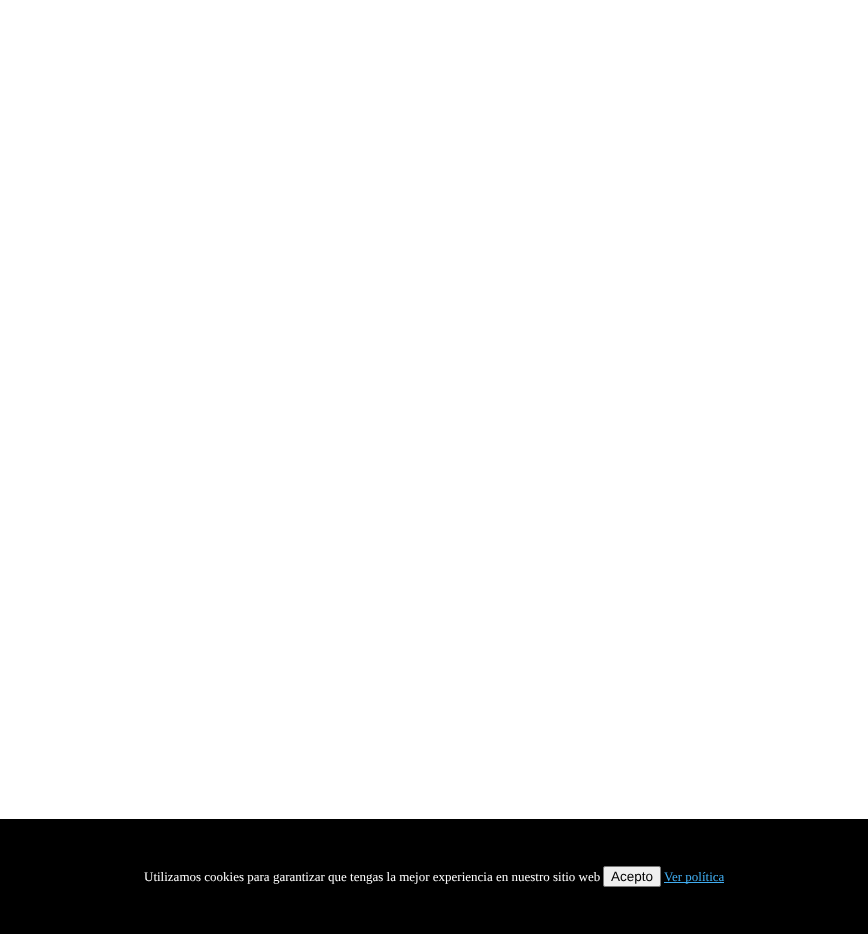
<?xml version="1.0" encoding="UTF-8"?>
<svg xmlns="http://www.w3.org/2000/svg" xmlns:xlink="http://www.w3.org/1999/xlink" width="868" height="934">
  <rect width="100%" height="100%" fill="#ffffff" />
  <rect y="819" width="868" height="115" fill="#000000" />
  <rect x="603.5" y="866.5" width="57" height="20" rx="1.5" fill="#efefef" stroke="#767676" />
  <rect x="664" y="882" width="60" height="1" fill="#41aef2" />
  <text x="144" y="881" style="font-family: Liberation Serif; font-size: 13px; fill: #ffffff">Utilizamos cookies para garantizar que tengas la mejor experiencia en nuestro sitio web</text>
  <text x="611" y="881" style="font-family: Liberation Sans; font-size: 13.5px; fill: #000000">Acepto</text>
  <text x="664" y="881" style="font-family: Liberation Serif; font-size: 13px; fill: #41aef2">Ver política</text>
</svg>
